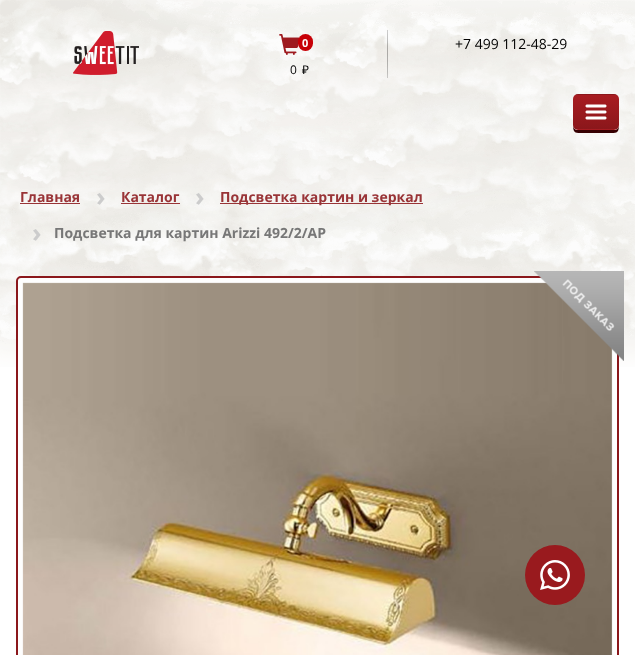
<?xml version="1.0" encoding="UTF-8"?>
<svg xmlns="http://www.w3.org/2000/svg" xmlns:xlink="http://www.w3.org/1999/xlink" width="635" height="655">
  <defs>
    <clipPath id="clip1"><rect x="573" y="94" width="46" height="36" rx="5" /></clipPath>
    <linearGradient id="g1" gradientUnits="userSpaceOnUse" x1="596" y1="61" x2="596" y2="95"><stop offset="0" stop-color="#a81c21" /><stop offset="1" stop-color="#8b171b" /></linearGradient>
    <linearGradient id="g2" gradientUnits="userSpaceOnUse" x1="596" y1="95" x2="596" y2="129"><stop offset="0" stop-color="#a81c21" /><stop offset="1" stop-color="#8b171b" /></linearGradient>
    <linearGradient id="g3" gradientUnits="userSpaceOnUse" x1="596" y1="129" x2="596" y2="163"><stop offset="0" stop-color="#a81c21" /><stop offset="1" stop-color="#8b171b" /></linearGradient>
  </defs>
  <rect width="100%" height="100%" fill="#ffffff" />
  <image x="0" y="0" width="635" height="367" xlink:href="image1.png" />
  <image x="73" y="31" width="66" height="44" xlink:href="image2.png" />
  <image x="387" y="30" width="1" height="48" xlink:href="image3.png" />
  <image x="279" y="34" width="21" height="21" xlink:href="image4.png" />
  <rect x="298" y="34" width="15" height="17" rx="7.5" fill="#c70007" />
  <path d="M 573 125 c 0 9 3 8 11 8 h 24 c 8 0 11 1 11 -8 c 0 3 -2 5 -5 5 h -36 c -3 0 -5 -2 -5 -5 z" fill="#360002" />
  <g clip-path="url(#clip1)">
    <rect x="573" y="94" width="46" height="1" fill="url(#g1)" />
    <rect x="573" y="95" width="46" height="34" fill="url(#g2)" />
    <rect x="573" y="129" width="46" height="1" fill="url(#g3)" />
  </g>
  <image x="585" y="104" width="22" height="16" xlink:href="image5.png" />
  <rect x="20" y="203" width="60" height="1" fill="#993437" />
  <rect x="121" y="203" width="59" height="1" fill="#993437" />
  <rect x="220" y="203" width="203" height="1" fill="#993437" />
  <rect x="17" y="277" width="601" height="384" rx="4" fill="#fefefe" stroke="#8b171b" stroke-width="2" />
  <image x="22" y="282" width="591" height="373" xlink:href="image7.png" />
  <image x="534" y="271" width="90" height="90" xlink:href="image6.png" />
  <circle cx="555" cy="575" r="30" fill="#991a1e" />
  <image x="540" y="560" width="30" height="30" xlink:href="image8.png" />
  <text x="302" y="47" style="font-family: Open Sans; font-size: 11px; font-weight: bold; fill: #fefefe">0</text>
  <text x="290" y="74" style="font-family: Open Sans; font-size: 12px; fill: #030303">0</text>
  <text x="302" y="74" style="font-family: Noto Sans; font-size: 12px; fill: #030303">₽</text>
  <text x="455" y="49" style="font-family: Open Sans; font-size: 14px; fill: #030303">+7 499 112-48-29</text>
  <text x="20" y="202" style="font-family: Open Sans; font-size: 14px; font-weight: bold; fill: #993437">Главная</text>
  <text x="96" y="206" style="font-family: Open Sans; font-size: 26px; font-weight: bold; fill: #cccccc">›</text>
  <text x="121" y="202" style="font-family: Open Sans; font-size: 14px; font-weight: bold; fill: #993437">Каталог</text>
  <text x="195" y="206" style="font-family: Open Sans; font-size: 26px; font-weight: bold; fill: #cccccc">›</text>
  <text x="220" y="202" style="font-family: Open Sans; font-size: 14px; font-weight: bold; fill: #993437">Подсветка картин и зеркал</text>
  <text x="32" y="242" style="font-family: Open Sans; font-size: 26px; font-weight: bold; fill: #cccccc">›</text>
  <text x="54" y="238" style="font-family: Open Sans; font-size: 14px; font-weight: bold; fill: #777777">Подсветка для картин Arizzi 492/2/AP</text>
</svg>
